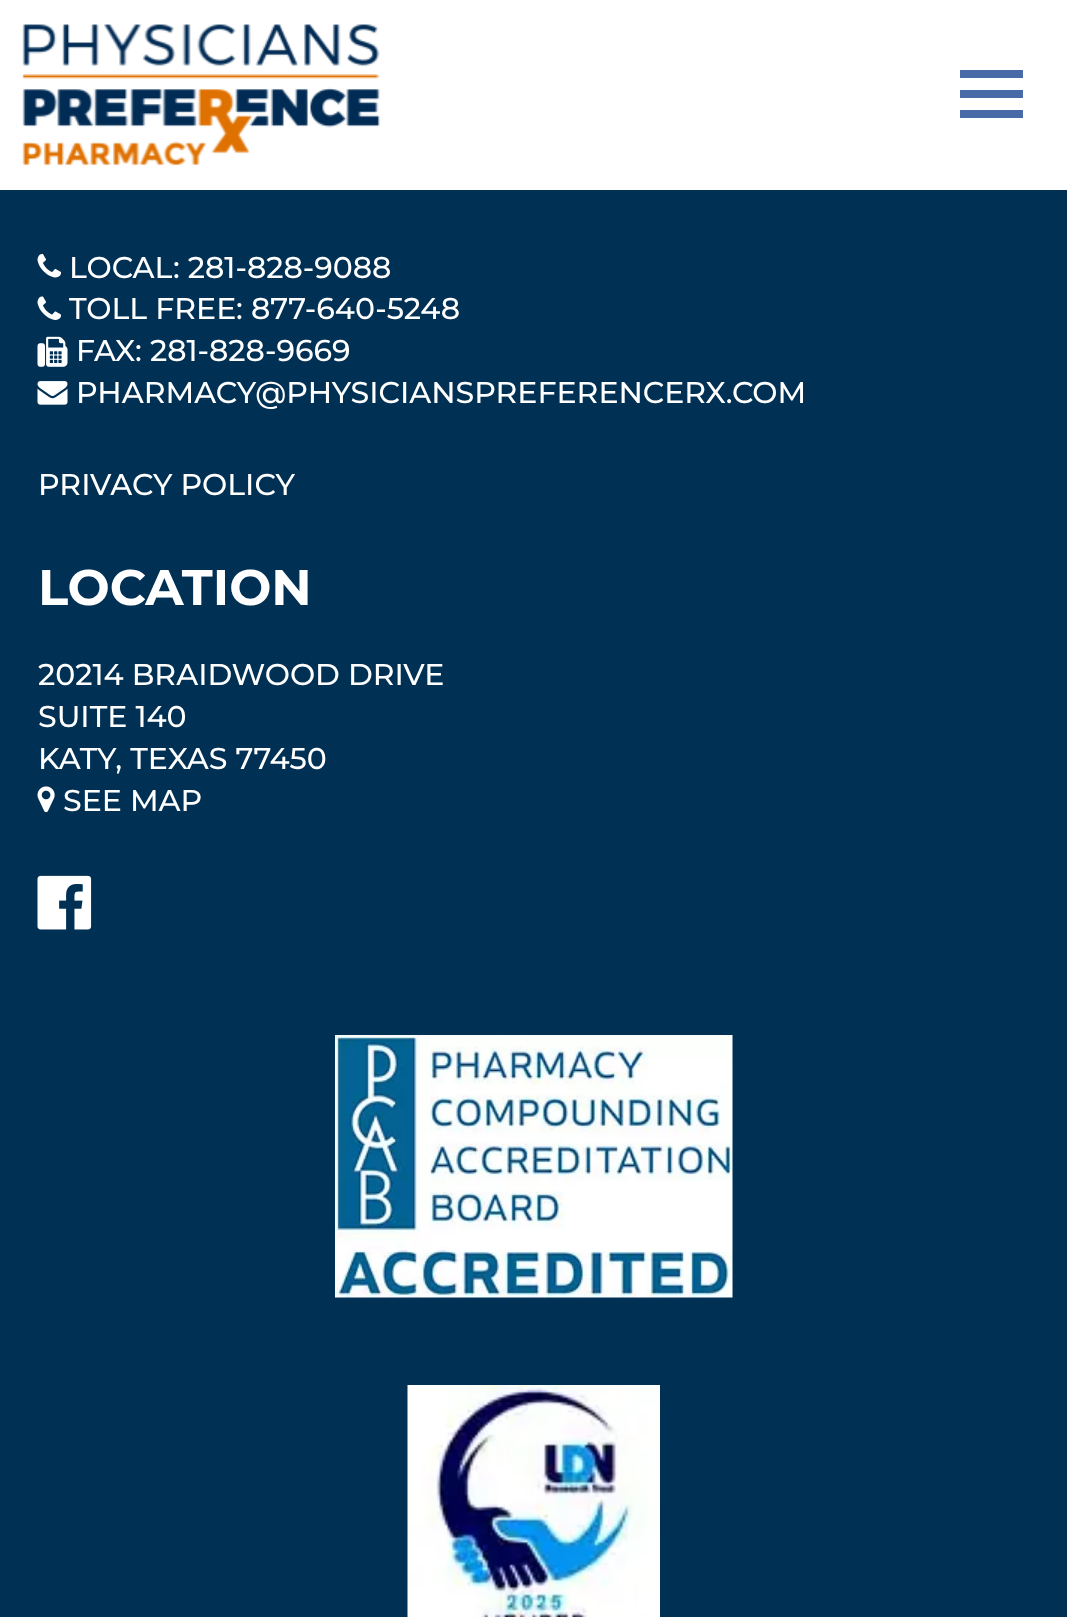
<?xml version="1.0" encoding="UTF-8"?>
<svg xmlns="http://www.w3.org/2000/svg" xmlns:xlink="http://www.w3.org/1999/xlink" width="1067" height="1617">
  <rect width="100%" height="100%" fill="#003054" />
  <rect width="1067" height="190" fill="#ffffff" />
  <image x="22" y="24" width="358" height="142" xlink:href="image1.png" />
  <rect x="960" y="70" width="63" height="8" fill="#486ba7" />
  <rect x="960" y="90" width="63" height="8" fill="#486ba7" />
  <rect x="960" y="110" width="63" height="8" fill="#486ba7" />
  <image x="37" y="253" width="25" height="25" xlink:href="image2.png" />
  <image x="37" y="296" width="24" height="24" xlink:href="image3.png" />
  <image x="37" y="336" width="31" height="31" xlink:href="image4.png" />
  <image x="37" y="381" width="31" height="24" xlink:href="image5.png" />
  <image x="37" y="786" width="18" height="27" xlink:href="image6.png" />
  <image x="37" y="875" width="55" height="55" xlink:href="image7.png" />
  <image x="335" y="1035" width="398" height="263" xlink:href="image8.png" />
  <image x="407" y="1385" width="253" height="232" xlink:href="image9.png" />
  <text x="69" y="278" style="font-family: Montserrat; font-size: 30px; font-weight: 500; fill: #ffffff">LOCAL: 281-828-9088</text>
  <text x="69" y="319" style="font-family: Montserrat; font-size: 30px; font-weight: 500; fill: #ffffff">TOLL FREE: 877-640-5248</text>
  <text x="76" y="361" style="font-family: Montserrat; font-size: 30px; font-weight: 500; fill: #ffffff">FAX: 281-828-9669</text>
  <text x="76" y="403" style="font-family: Montserrat; font-size: 30px; font-weight: 500; fill: #ffffff">PHARMACY@PHYSICIANSPREFERENCERX.COM</text>
  <text x="38" y="495" style="font-family: Montserrat; font-size: 30px; font-weight: 500; fill: #ffffff">PRIVACY POLICY</text>
  <text x="38" y="605" style="font-family: Montserrat; font-size: 50px; font-weight: bold; fill: #ffffff">LOCATION</text>
  <text x="38" y="685" style="font-family: Montserrat; font-size: 30px; font-weight: 500; fill: #ffffff">20214 BRAIDWOOD DRIVE</text>
  <text x="38" y="727" style="font-family: Montserrat; font-size: 30px; font-weight: 500; fill: #ffffff">SUITE 140</text>
  <text x="38" y="769" style="font-family: Montserrat; font-size: 30px; font-weight: 500; fill: #ffffff">KATY, TEXAS 77450</text>
  <text x="63" y="811" style="font-family: Montserrat; font-size: 30px; font-weight: 500; fill: #ffffff">SEE MAP</text>
</svg>
